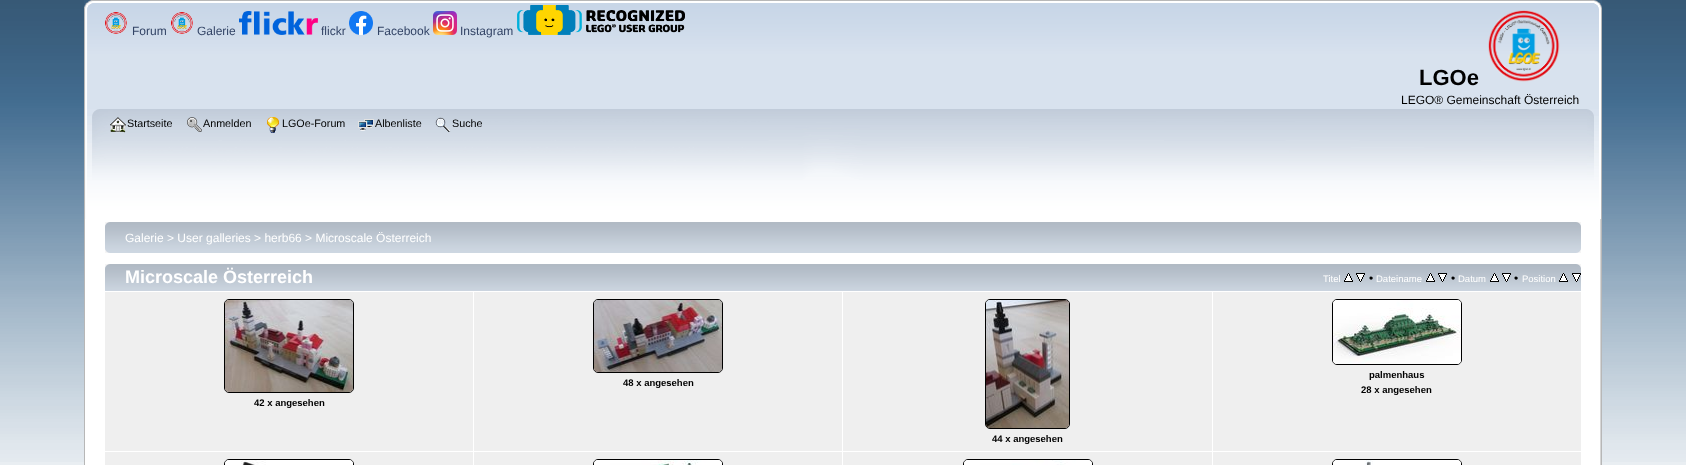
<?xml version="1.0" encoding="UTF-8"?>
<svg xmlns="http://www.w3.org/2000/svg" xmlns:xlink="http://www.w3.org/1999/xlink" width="1686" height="465">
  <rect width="100%" height="100%" fill="#e9eef2" />
  <image x="0" y="0" width="1686" height="462" xlink:href="image1.png" />
  <image x="84" y="0" width="1510" height="109" xlink:href="image2.png" />
  <image x="1594" y="0" width="8" height="109" xlink:href="image3.png" />
  <image x="105" y="12" width="22" height="22" xlink:href="image4.png" />
  <image x="171" y="12" width="22" height="22" xlink:href="image5.png" />
  <image x="239" y="11" width="79" height="24" xlink:href="image6.png" />
  <image x="349" y="11" width="24" height="24" xlink:href="image7.png" />
  <image x="433" y="11" width="24" height="24" xlink:href="image8.png" />
  <image x="517" y="5" width="168" height="30" xlink:href="image9.png" />
  <image x="1488" y="10" width="72" height="72" xlink:href="image10.png" />
  <image x="84" y="109" width="1503" height="110" xlink:href="image11.png" />
  <image x="1587" y="109" width="15" height="110" xlink:href="image12.png" />
  <image x="110" y="117" width="16" height="16" xlink:href="image13.png" />
  <image x="187" y="117" width="15" height="15" xlink:href="image14.png" />
  <image x="267" y="117" width="12" height="16" xlink:href="image15.png" />
  <image x="358" y="119" width="16" height="12" xlink:href="image16.png" />
  <image x="435" y="117" width="16" height="15" xlink:href="image17.png" />
  <rect x="85" y="219" width="1515" height="246" fill="#ffffff" />
  <rect x="84" y="219" width="1" height="246" fill="#b7b7b7" />
  <image x="1600" y="219" width="2" height="246" xlink:href="image18.png" />
  <image x="105" y="222" width="1471" height="31" xlink:href="image19.png" />
  <image x="1576" y="222" width="5" height="31" xlink:href="image20.png" />
  <image x="105" y="264" width="1476" height="27" xlink:href="image21.png" />
  <image x="1576" y="264" width="5" height="4" xlink:href="image22.png" />
  <image x="1344" y="273" width="9" height="9" xlink:href="image23.png" />
  <image x="1356" y="273" width="9" height="9" xlink:href="image24.png" />
  <image x="1426" y="273" width="9" height="9" xlink:href="image23.png" />
  <image x="1438" y="273" width="9" height="9" xlink:href="image24.png" />
  <image x="1490" y="273" width="9" height="9" xlink:href="image23.png" />
  <image x="1502" y="273" width="9" height="9" xlink:href="image24.png" />
  <image x="1559" y="273" width="9" height="9" xlink:href="image23.png" />
  <image x="1572" y="273" width="9" height="9" xlink:href="image24.png" />
  <rect x="474" y="292" width="368" height="159" fill="#efefef" />
  <rect x="593.5" y="299.5" width="129" height="73" rx="4.5" fill="none" stroke="#000000" />
  <image x="594" y="300" width="128" height="72" xlink:href="image25.png" />
  <rect x="1213" y="292" width="368" height="159" fill="#efefef" />
  <rect x="1332.5" y="299.5" width="129" height="65" rx="4.5" fill="none" stroke="#000000" />
  <image x="1333" y="300" width="128" height="64" xlink:href="image26.png" />
  <rect x="105" y="292" width="368" height="159" fill="#efefef" />
  <rect x="224.5" y="299.5" width="129" height="93" rx="4.5" fill="none" stroke="#000000" />
  <image x="225" y="300" width="128" height="92" xlink:href="image27.png" />
  <rect x="843" y="292" width="369" height="159" fill="#efefef" />
  <rect x="985.5" y="299.5" width="84" height="129" rx="4.5" fill="none" stroke="#000000" />
  <image x="986" y="300" width="83" height="128" xlink:href="image28.png" />
  <rect x="105" y="452" width="368" height="13" fill="#efefef" />
  <rect x="224.5" y="459.5" width="129" height="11" rx="4.5" fill="none" stroke="#000000" />
  <image x="225" y="460" width="128" height="5" xlink:href="image29.png" />
  <rect x="474" y="452" width="368" height="13" fill="#efefef" />
  <rect x="593.5" y="459.5" width="129" height="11" rx="4.5" fill="none" stroke="#000000" />
  <image x="594" y="460" width="128" height="5" xlink:href="image30.png" />
  <rect x="843" y="452" width="369" height="13" fill="#efefef" />
  <rect x="963.5" y="459.5" width="129" height="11" rx="4.5" fill="none" stroke="#000000" />
  <image x="964" y="460" width="128" height="5" xlink:href="image31.png" />
  <rect x="1213" y="452" width="368" height="13" fill="#efefef" />
  <rect x="1332.5" y="459.5" width="129" height="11" rx="4.5" fill="none" stroke="#000000" />
  <image x="1333" y="460" width="128" height="5" xlink:href="image32.png" />
  <text x="132" y="35" style="font-family: Liberation Sans; font-size: 12px; fill: #334466">Forum</text>
  <text x="197" y="35" style="font-family: Liberation Sans; font-size: 12px; fill: #334466">Galerie</text>
  <text x="321" y="35" style="font-family: Liberation Sans; font-size: 12px; fill: #334466">flickr</text>
  <text x="377" y="35" style="font-family: Liberation Sans; font-size: 12px; fill: #334466">Facebook</text>
  <text x="460" y="35" style="font-family: Liberation Sans; font-size: 12px; fill: #334466">Instagram</text>
  <text x="1419" y="85" style="font-family: Liberation Sans; font-size: 22px; font-weight: bold; fill: #000000">LGOe</text>
  <text x="1401" y="104" style="font-family: Liberation Sans; font-size: 12px; fill: #000000">LEGO® Gemeinschaft Österreich</text>
  <text x="127" y="127" style="font-family: Liberation Sans; font-size: 10.75px; fill: #000000">Startseite</text>
  <text x="203" y="127" style="font-family: Liberation Sans; font-size: 10.75px; fill: #000000">Anmelden</text>
  <text x="282" y="127" style="font-family: Liberation Sans; font-size: 10.75px; fill: #000000">LGOe-Forum</text>
  <text x="375" y="127" style="font-family: Liberation Sans; font-size: 10.75px; fill: #000000">Albenliste</text>
  <text x="452" y="127" style="font-family: Liberation Sans; font-size: 10.75px; fill: #000000">Suche</text>
  <text x="125" y="242" style="font-family: Liberation Sans; font-size: 12px; fill: #ffffff">Galerie &gt; User galleries &gt; herb66 &gt; Microscale Österreich</text>
  <text x="125" y="283" style="font-family: Liberation Sans; font-size: 18px; font-weight: bold; fill: #ffffff">Microscale Österreich</text>
  <text x="1323" y="282" style="font-family: Liberation Sans; font-size: 9.5px; fill: #ffffff">Titel</text>
  <text x="1369" y="282" style="font-family: Liberation Sans; font-size: 12px; fill: #000000">•</text>
  <text x="1376" y="282" style="font-family: Liberation Sans; font-size: 9.5px; fill: #ffffff">Dateiname</text>
  <text x="1451" y="282" style="font-family: Liberation Sans; font-size: 12px; fill: #000000">•</text>
  <text x="1458" y="282" style="font-family: Liberation Sans; font-size: 9.5px; fill: #ffffff">Datum</text>
  <text x="1514" y="282" style="font-family: Liberation Sans; font-size: 12px; fill: #000000">•</text>
  <text x="1522" y="282" style="font-family: Liberation Sans; font-size: 9.5px; fill: #ffffff">Position</text>
  <text x="623" y="386" style="font-family: Liberation Sans; font-size: 9.5px; font-weight: bold; fill: #000000">48 x angesehen</text>
  <text x="1369" y="378" style="font-family: Liberation Sans; font-size: 9.5px; font-weight: bold; fill: #000000">palmenhaus</text>
  <text x="1361" y="393" style="font-family: Liberation Sans; font-size: 9.5px; font-weight: bold; fill: #000000">28 x angesehen</text>
  <text x="254" y="406" style="font-family: Liberation Sans; font-size: 9.5px; font-weight: bold; fill: #000000">42 x angesehen</text>
  <text x="992" y="442" style="font-family: Liberation Sans; font-size: 9.5px; font-weight: bold; fill: #000000">44 x angesehen</text>
</svg>
